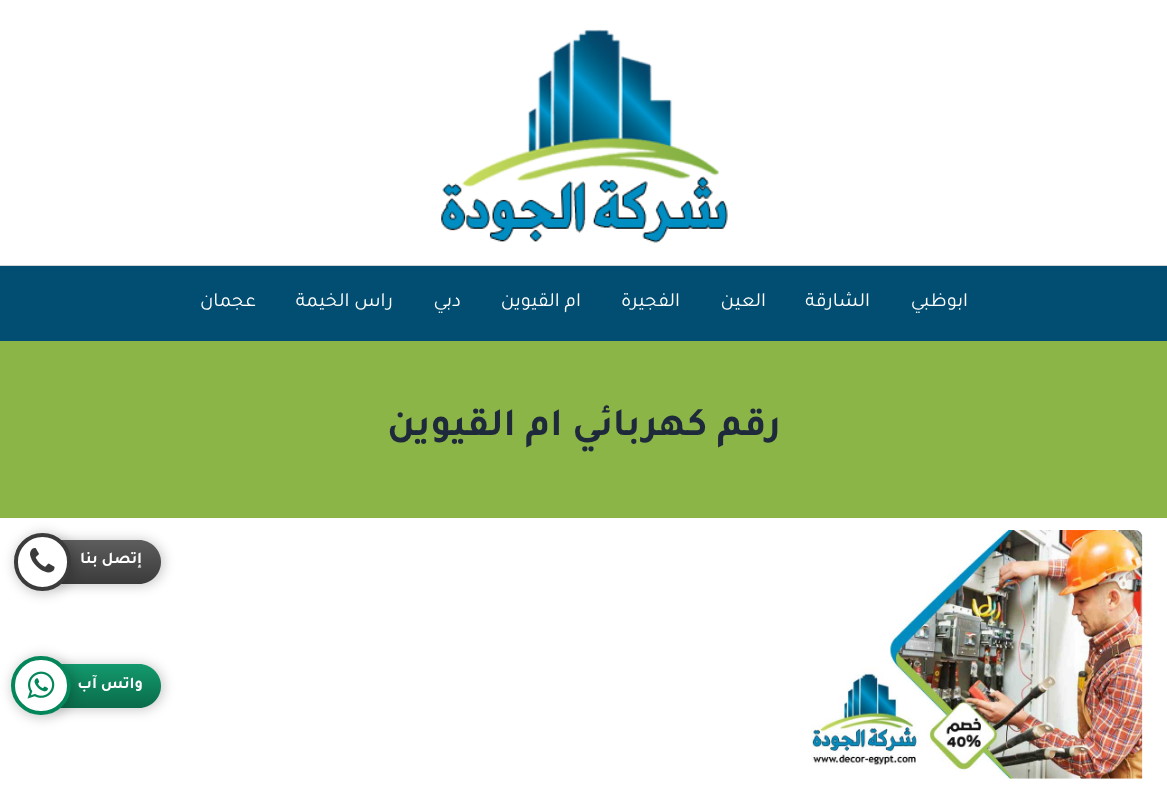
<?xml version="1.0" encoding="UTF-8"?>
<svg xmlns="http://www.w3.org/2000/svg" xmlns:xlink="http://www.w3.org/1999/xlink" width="1167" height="795">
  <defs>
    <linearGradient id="g1" gradientUnits="userSpaceOnUse" x1="102" y1="584" x2="102" y2="540"><stop offset="0" stop-color="#3b3b3b" /><stop offset="1" stop-color="#5d5d5d" /></linearGradient>
    <linearGradient id="g2" gradientUnits="userSpaceOnUse" x1="101" y1="708" x2="101" y2="664"><stop offset="0" stop-color="#0a6b4b" /><stop offset="1" stop-color="#13996d" /></linearGradient>
  </defs>
  <rect width="100%" height="100%" fill="#ffffff" />
  <rect y="265" width="1167" height="1" fill="#d1d5db" />
  <image x="441" y="29" width="287" height="214" xlink:href="image1.png" />
  <rect y="266" width="1167" height="75" fill="#024e72" />
  <rect y="341" width="1167" height="177" fill="#8bb546" />
  <image x="811" y="530" width="332" height="249" xlink:href="image2.png" />
  <rect x="43" y="540" width="121" height="46" rx="23" fill="#000000" fill-opacity="0.2" filter="blur(6px)" />
  <path d="M 43 540 h 96 c 12 0 22 10 22 22 c 0 12 -10 22 -22 22 h -96 z" fill="url(#g1)" />
  <rect x="14" y="533" width="60" height="61" rx="30" fill="#000000" fill-opacity="0.2" filter="blur(6px)" />
  <rect x="16" y="535" width="53" height="54" rx="26.5" fill="#ffffff" stroke="#3b3b3b" stroke-width="4" />
  <image x="30" y="548" width="25" height="25" xlink:href="image3.png" />
  <rect x="40" y="664" width="124" height="46" rx="23" fill="#000000" fill-opacity="0.2" filter="blur(6px)" />
  <path d="M 40 664 h 99 c 12 0 22 10 22 22 c 0 12 -10 22 -22 22 h -99 z" fill="url(#g2)" />
  <rect x="11" y="656" width="63" height="62" rx="31" fill="#000000" fill-opacity="0.2" filter="blur(6px)" />
  <rect x="13" y="658" width="56" height="55" rx="27.5" fill="#ffffff" stroke="#04865b" stroke-width="4" />
  <image x="27" y="671" width="28" height="28" xlink:href="image4.png" />
  <text x="968" y="306" style="font-family: Tajawal; font-size: 20px; direction: rtl; fill: #ffffff">ابوظبي</text>
  <text x="870" y="306" style="font-family: Tajawal; font-size: 20px; direction: rtl; fill: #ffffff">الشارقة</text>
  <text x="766" y="306" style="font-family: Tajawal; font-size: 20px; direction: rtl; fill: #ffffff">العين</text>
  <text x="680" y="306" style="font-family: Tajawal; font-size: 20px; direction: rtl; fill: #ffffff">الفجيرة</text>
  <text x="581" y="306" style="font-family: Tajawal; font-size: 20px; direction: rtl; fill: #ffffff">ام القيوين</text>
  <text x="461" y="306" style="font-family: Tajawal; font-size: 20px; direction: rtl; fill: #ffffff">دبي</text>
  <text x="393" y="306" style="font-family: Tajawal; font-size: 20px; direction: rtl; fill: #ffffff">راس الخيمة</text>
  <text x="256" y="306" style="font-family: Tajawal; font-size: 20px; direction: rtl; fill: #ffffff">عجمان</text>
  <text x="781" y="435" style="font-family: Tajawal; font-size: 40px; font-weight: bold; direction: rtl; fill: #1e293b">رقم كهربائي ام القيوين</text>
  <text x="142" y="563" style="font-family: Tajawal; font-size: 16.25px; font-weight: bold; direction: rtl; fill: #ffffff">إتصل بنا</text>
  <text x="143" y="688" style="font-family: Tajawal; font-size: 16.25px; font-weight: bold; direction: rtl; fill: #ffffff">واتس آب</text>
</svg>
